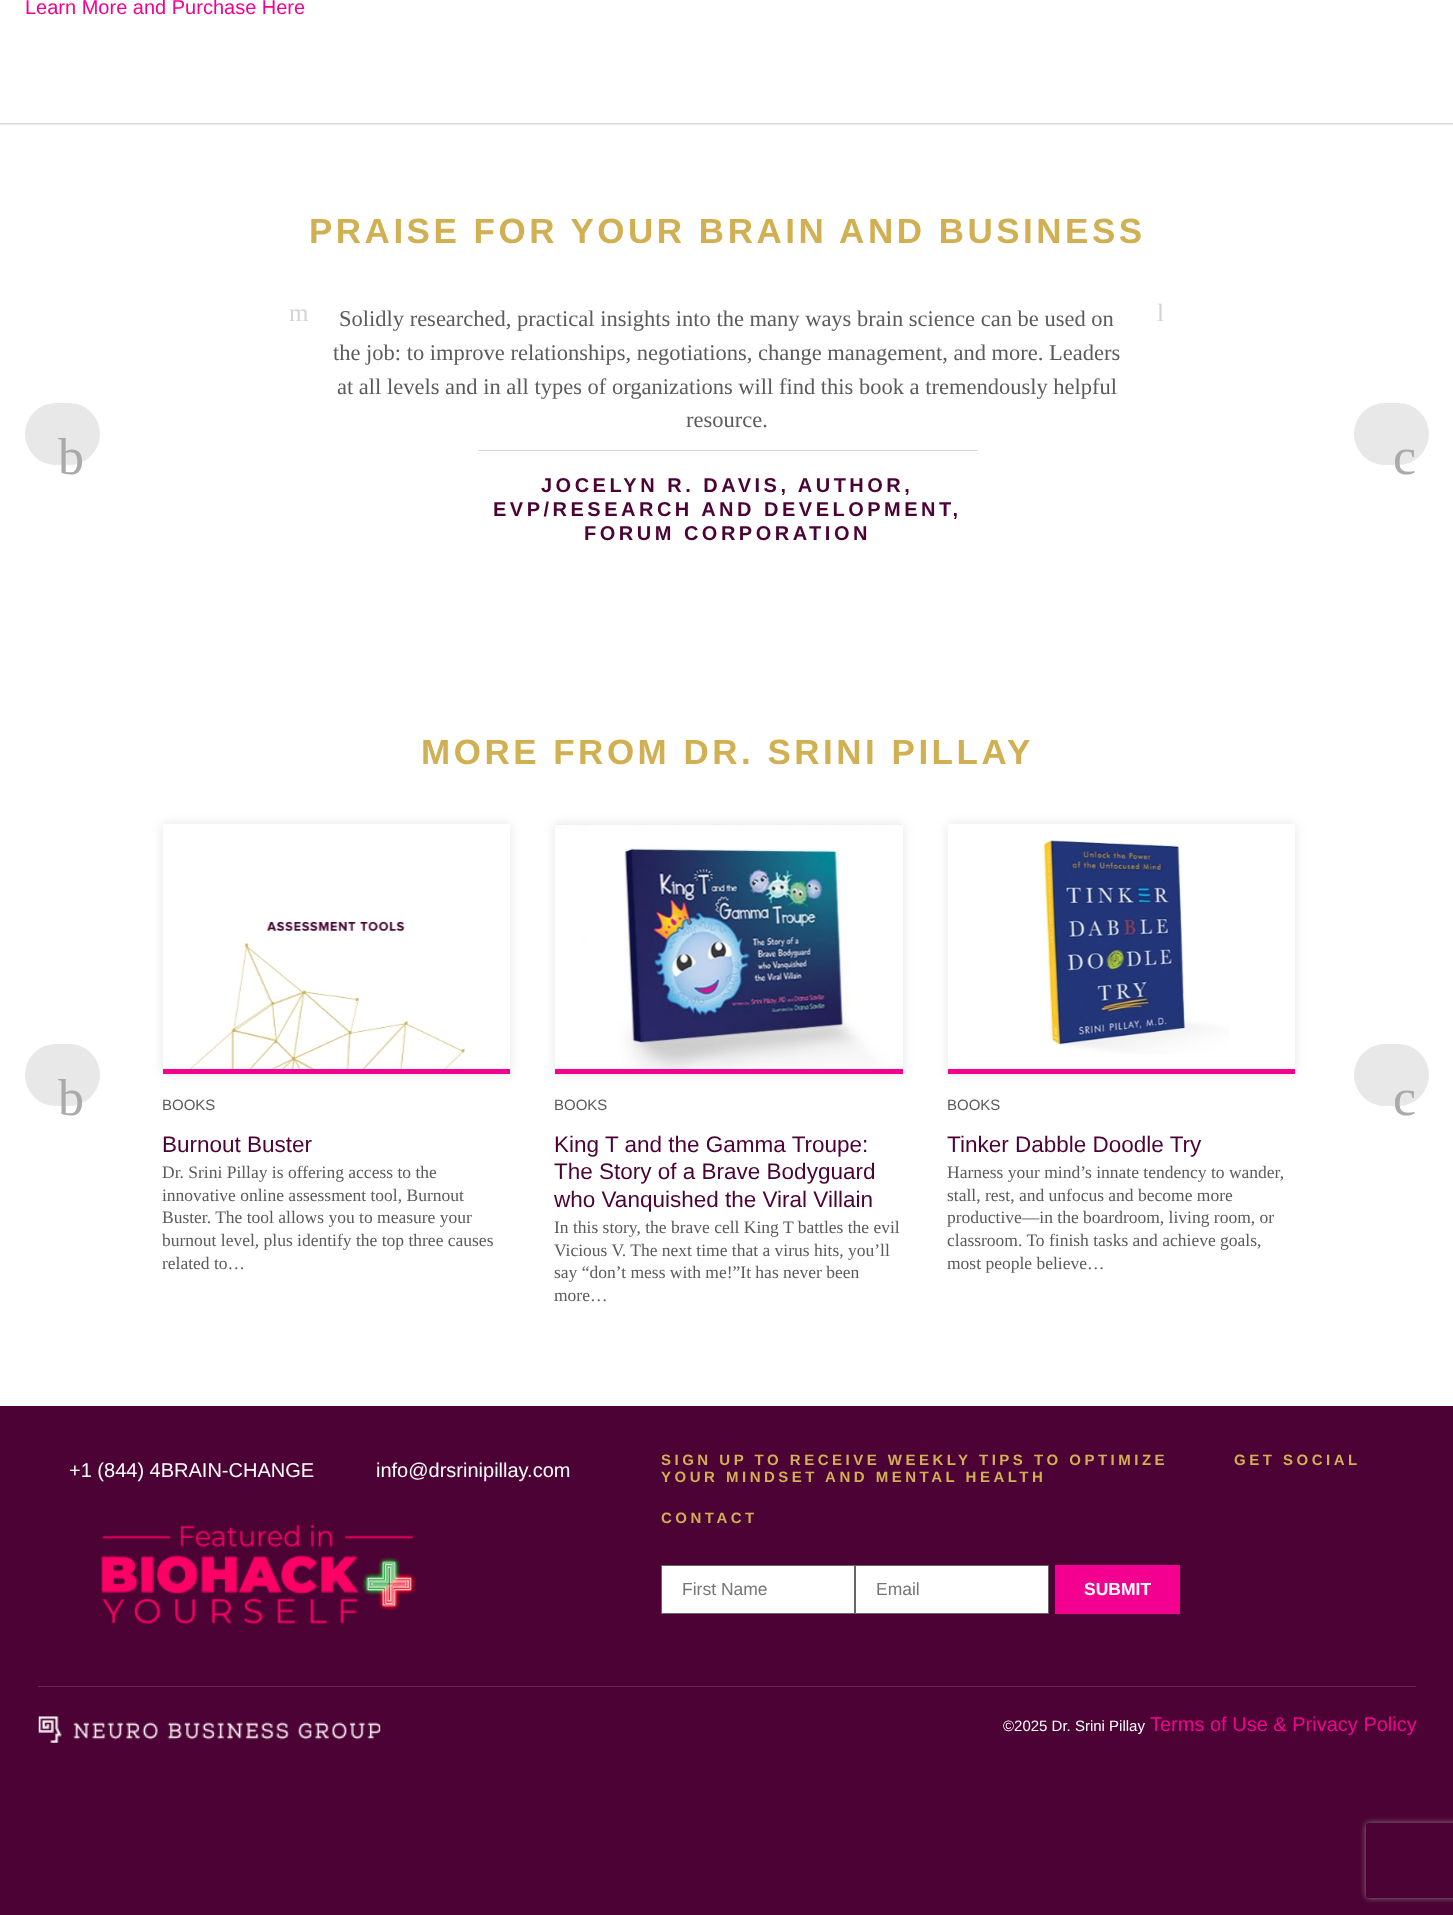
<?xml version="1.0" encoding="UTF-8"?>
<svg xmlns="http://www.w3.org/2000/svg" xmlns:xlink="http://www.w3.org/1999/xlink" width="1453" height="1915">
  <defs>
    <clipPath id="clip1"><path d="M 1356 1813 h 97 v 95 h -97 z m 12.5 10 h 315 c 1.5 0 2.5 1 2.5 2.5 v 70 c 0 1.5 -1 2.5 -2.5 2.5 h -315 c -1.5 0 -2.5 -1 -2.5 -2.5 v -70 c 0 -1.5 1 -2.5 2.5 -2.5 z" clip-rule="evenodd" /></clipPath>
  </defs>
  <rect width="100%" height="100%" fill="#4c0234" />
  <rect width="1453" height="1406" fill="#ffffff" />
  <rect y="123" width="1453" height="1" fill="#d8d8d8" />
  <rect y="124" width="1453" height="1" fill="#ececec" />
  <rect x="25" y="403" width="75" height="62" rx="31" fill="#e8e8e8" />
  <rect x="478" y="450" width="500" height="1" fill="#d8d8d8" />
  <rect x="1354" y="403" width="75" height="62" rx="31" fill="#e8e8e8" />
  <rect x="25" y="1044" width="75" height="62" rx="31" fill="#e8e8e8" />
  <rect x="163" y="824" width="347" height="250" fill="#000000" fill-opacity="0.1" filter="blur(6px)" />
  <rect x="163" y="824" width="347" height="245" fill="#ffffff" />
  <image x="189" y="921" width="277" height="148" xlink:href="image1.png" />
  <rect x="163" y="1069" width="347" height="5" fill="#f40091" />
  <rect x="555" y="824" width="348" height="250" fill="#000000" fill-opacity="0.1" filter="blur(6px)" />
  <rect x="555" y="824" width="348" height="245" fill="#ffffff" />
  <image x="555" y="824" width="348" height="245" xlink:href="image2.png" />
  <rect x="555" y="1069" width="348" height="5" fill="#f40091" />
  <rect x="948" y="824" width="347" height="250" fill="#000000" fill-opacity="0.1" filter="blur(6px)" />
  <rect x="948" y="824" width="347" height="245" fill="#ffffff" />
  <image x="1042" y="840" width="187" height="214" xlink:href="image3.png" />
  <rect x="948" y="1069" width="347" height="5" fill="#f40091" />
  <rect x="1354" y="1044" width="75" height="62" rx="31" fill="#e8e8e8" />
  <rect x="661.5" y="1565.5" width="193" height="48" fill="#ffffff" stroke="#666666" />
  <rect x="855.5" y="1565.5" width="193" height="48" fill="#ffffff" stroke="#666666" />
  <g clip-path="url(#clip1)">
    <rect x="1366" y="1823" width="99" height="75" rx="2.5" fill="#808080" filter="blur(3px)" />
  </g>
  <rect x="1055" y="1565" width="125" height="49" fill="#f40091" />
  <image x="101" y="1524" width="315" height="101" xlink:href="image4.png" />
  <rect x="38" y="1686" width="1378" height="1" fill="#6b2655" />
  <image x="38" y="1716" width="343" height="27" xlink:href="image5.png" />
  <text x="25" y="14" style="font-family: Liberation Sans; font-size: 20px; fill: #f40091">Learn More and Purchase Here</text>
  <text x="309" y="243" style="font-family: Liberation Sans; font-size: 35px; font-weight: bold; letter-spacing: 3.5px; fill: #d1b053">PRAISE FOR YOUR BRAIN AND BUSINESS</text>
  <text x="58" y="474" style="font-family: Liberation Serif; font-size: 52px; fill: #aaaaaa">b</text>
  <text x="289" y="321" style="font-family: Liberation Serif; font-size: 25px; fill: #d4d4d4">m</text>
  <text x="339" y="326" style="font-family: Liberation Serif; font-size: 22.5px; fill: #5b5b5b">Solidly researched, practical insights into the many ways brain science can be used on</text>
  <text x="1157" y="321" style="font-family: Liberation Serif; font-size: 25px; fill: #d4d4d4">l</text>
  <text x="333" y="360" style="font-family: Liberation Serif; font-size: 22.5px; fill: #5b5b5b">the job: to improve relationships, negotiations, change management, and more. Leaders</text>
  <text x="337" y="394" style="font-family: Liberation Serif; font-size: 22.5px; fill: #5b5b5b">at all levels and in all types of organizations will find this book a tremendously helpful</text>
  <text x="686" y="427" style="font-family: Liberation Serif; font-size: 22.5px; fill: #5b5b5b">resource.</text>
  <text x="541" y="492" style="font-family: Liberation Sans; font-size: 20px; font-weight: bold; letter-spacing: 3.5px; fill: #4c0234">JOCELYN R. DAVIS, AUTHOR,</text>
  <text x="493" y="516" style="font-family: Liberation Sans; font-size: 20px; font-weight: bold; letter-spacing: 3.5px; fill: #4c0234">EVP/RESEARCH AND DEVELOPMENT,</text>
  <text x="584" y="540" style="font-family: Liberation Sans; font-size: 20px; font-weight: bold; letter-spacing: 3.5px; fill: #4c0234">FORUM CORPORATION</text>
  <text x="1393" y="474" style="font-family: Liberation Serif; font-size: 52px; fill: #aaaaaa">c</text>
  <text x="421" y="764" style="font-family: Liberation Sans; font-size: 35px; font-weight: bold; letter-spacing: 3.5px; fill: #d1b053">MORE FROM DR. SRINI PILLAY</text>
  <text x="58" y="1115" style="font-family: Liberation Serif; font-size: 52px; fill: #aaaaaa">b</text>
  <text x="162" y="1110" style="font-family: Liberation Sans; font-size: 15px; fill: #5b5b5b">BOOKS</text>
  <text x="162" y="1152" style="font-family: Liberation Sans; font-size: 22.5px; fill: #4c0234">Burnout Buster</text>
  <text x="162" y="1178" style="font-family: Liberation Serif; font-size: 17.5px; fill: #5b5b5b">Dr. Srini Pillay is offering access to the</text>
  <text x="162" y="1201" style="font-family: Liberation Serif; font-size: 17.5px; fill: #5b5b5b">innovative online assessment tool, Burnout</text>
  <text x="162" y="1223" style="font-family: Liberation Serif; font-size: 17.5px; fill: #5b5b5b">Buster. The tool allows you to measure your</text>
  <text x="162" y="1246" style="font-family: Liberation Serif; font-size: 17.5px; fill: #5b5b5b">burnout level, plus identify the top three causes</text>
  <text x="162" y="1269" style="font-family: Liberation Serif; font-size: 17.5px; fill: #5b5b5b">related to…</text>
  <text x="554" y="1110" style="font-family: Liberation Sans; font-size: 15px; fill: #5b5b5b">BOOKS</text>
  <text x="554" y="1152" style="font-family: Liberation Sans; font-size: 22.5px; fill: #4c0234">King T and the Gamma Troupe:</text>
  <text x="554" y="1179" style="font-family: Liberation Sans; font-size: 22.5px; fill: #4c0234">The Story of a Brave Bodyguard</text>
  <text x="554" y="1207" style="font-family: Liberation Sans; font-size: 22.5px; fill: #4c0234">who Vanquished the Viral Villain</text>
  <text x="554" y="1233" style="font-family: Liberation Serif; font-size: 17.5px; fill: #5b5b5b">In this story, the brave cell King T battles the evil</text>
  <text x="554" y="1256" style="font-family: Liberation Serif; font-size: 17.5px; fill: #5b5b5b">Vicious V. The next time that a virus hits, you’ll</text>
  <text x="554" y="1278" style="font-family: Liberation Serif; font-size: 17.5px; fill: #5b5b5b">say “don’t mess with me!”It has never been</text>
  <text x="554" y="1301" style="font-family: Liberation Serif; font-size: 17.5px; fill: #5b5b5b">more…</text>
  <text x="947" y="1110" style="font-family: Liberation Sans; font-size: 15px; fill: #5b5b5b">BOOKS</text>
  <text x="947" y="1152" style="font-family: Liberation Sans; font-size: 22.5px; fill: #4c0234">Tinker Dabble Doodle Try</text>
  <text x="947" y="1178" style="font-family: Liberation Serif; font-size: 17.5px; fill: #5b5b5b">Harness your mind’s innate tendency to wander,</text>
  <text x="947" y="1201" style="font-family: Liberation Serif; font-size: 17.5px; fill: #5b5b5b">stall, rest, and unfocus and become more</text>
  <text x="947" y="1223" style="font-family: Liberation Serif; font-size: 17.5px; fill: #5b5b5b">productive—in the boardroom, living room, or</text>
  <text x="947" y="1246" style="font-family: Liberation Serif; font-size: 17.5px; fill: #5b5b5b">classroom. To finish tasks and achieve goals,</text>
  <text x="947" y="1269" style="font-family: Liberation Serif; font-size: 17.5px; fill: #5b5b5b">most people believe…</text>
  <text x="1393" y="1115" style="font-family: Liberation Serif; font-size: 52px; fill: #aaaaaa">c</text>
  <text x="661" y="1465" style="font-family: Liberation Sans; font-size: 15px; font-weight: bold; letter-spacing: 3.5px; fill: #d1b053">SIGN UP TO RECEIVE WEEKLY TIPS TO OPTIMIZE</text>
  <text x="661" y="1482" style="font-family: Liberation Sans; font-size: 15px; font-weight: bold; letter-spacing: 3.5px; fill: #d1b053">YOUR MINDSET AND MENTAL HEALTH</text>
  <text x="661" y="1523" style="font-family: Liberation Sans; font-size: 15px; font-weight: bold; letter-spacing: 3.5px; fill: #d1b053">CONTACT</text>
  <text x="682" y="1595" style="font-family: Liberation Sans; font-size: 17.5px; fill: #757575">First Name</text>
  <text x="876" y="1595" style="font-family: Liberation Sans; font-size: 17.5px; fill: #757575">Email</text>
  <text x="1084" y="1595" style="font-family: Liberation Sans; font-size: 17.5px; font-weight: bold; fill: #ffffff">SUBMIT</text>
  <text x="1234" y="1465" style="font-family: Liberation Sans; font-size: 15px; font-weight: bold; letter-spacing: 3.5px; fill: #d1b053">GET SOCIAL</text>
  <text x="69" y="1477" style="font-family: Liberation Sans; font-size: 20px; fill: #ffffff">+1 (844) 4BRAIN-CHANGE</text>
  <text x="376" y="1477" style="font-family: Liberation Sans; font-size: 20px; fill: #ffffff">info@drsrinipillay.com</text>
  <text x="1003" y="1731" style="font-family: Liberation Sans; font-size: 15px; fill: #ffffff">©2025 Dr. Srini Pillay</text>
  <text x="1150" y="1731" style="font-family: Liberation Sans; font-size: 20px; fill: #f40091">Terms of Use &amp; Privacy Policy</text>
</svg>
